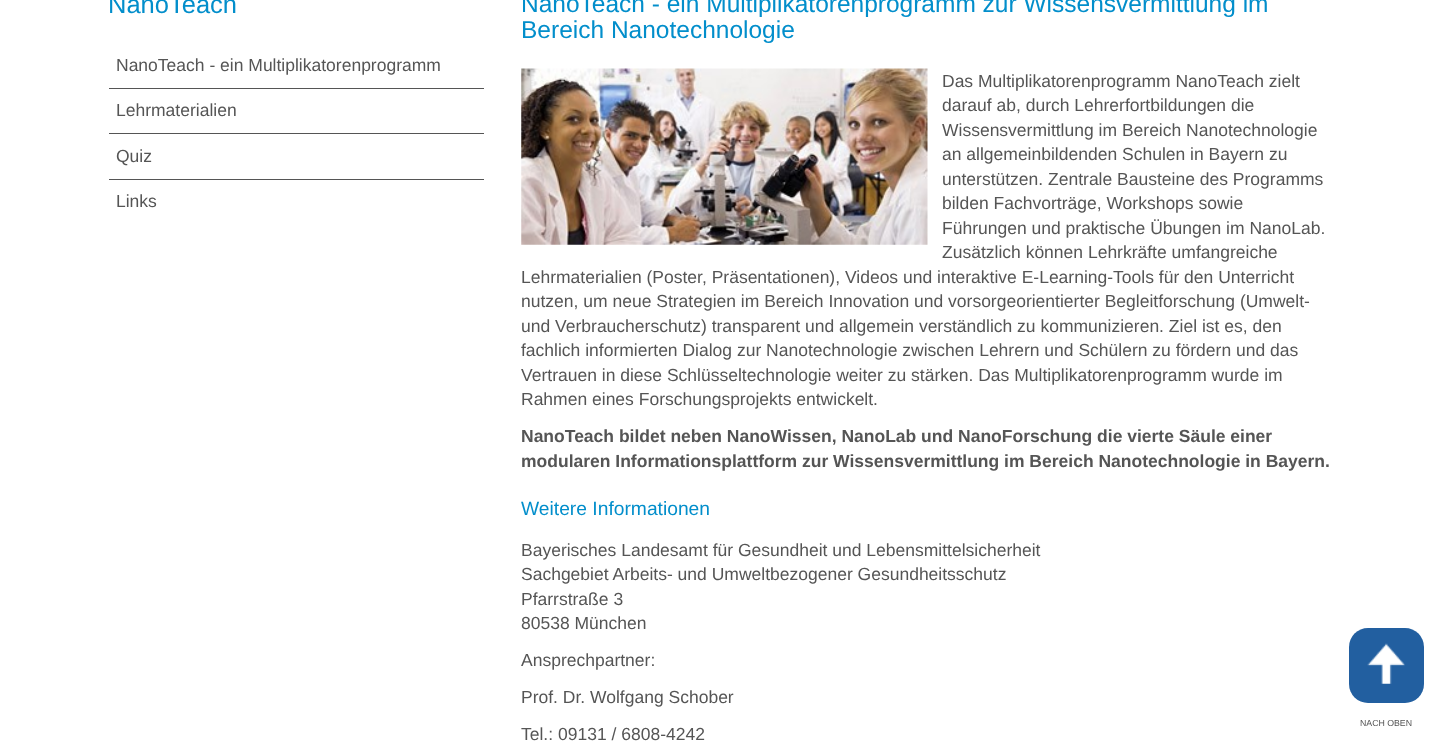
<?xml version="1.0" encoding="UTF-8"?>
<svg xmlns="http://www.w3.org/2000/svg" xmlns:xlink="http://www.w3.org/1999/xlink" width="1438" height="747">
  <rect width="100%" height="100%" fill="#ffffff" />
  <rect x="109" y="88" width="375" height="1" fill="#555555" />
  <rect x="109" y="133" width="375" height="1" fill="#555555" />
  <rect x="109" y="179" width="375" height="1" fill="#555555" />
  <image x="521" y="68" width="407" height="177" xlink:href="image1.png" />
  <rect x="1349" y="628" width="75" height="75" rx="19" fill="#225fa0" />
  <image x="1367" y="643" width="38" height="41" xlink:href="image2.png" />
  <text x="108" y="13" style="font-family: Liberation Sans; font-size: 25.5px; fill: #028ecb">NanoTeach</text>
  <text x="116" y="71" style="font-family: Liberation Sans; font-size: 17.5px; fill: #555555">NanoTeach - ein Multiplikatorenprogramm</text>
  <text x="116" y="116" style="font-family: Liberation Sans; font-size: 17.5px; fill: #555555">Lehrmaterialien</text>
  <text x="116" y="162" style="font-family: Liberation Sans; font-size: 17.5px; fill: #555555">Quiz</text>
  <text x="116" y="207" style="font-family: Liberation Sans; font-size: 17.5px; fill: #555555">Links</text>
  <text x="521" y="12" style="font-family: Liberation Sans; font-size: 24.5px; fill: #028ecb">NanoTeach - ein Multiplikatorenprogramm zur Wissensvermittlung im</text>
  <text x="521" y="38" style="font-family: Liberation Sans; font-size: 24.5px; fill: #028ecb">Bereich Nanotechnologie</text>
  <text x="942" y="87" style="font-family: Liberation Sans; font-size: 17.5px; fill: #555555">Das Multiplikatorenprogramm NanoTeach zielt</text>
  <text x="942" y="111" style="font-family: Liberation Sans; font-size: 17.5px; fill: #555555">darauf ab, durch Lehrerfortbildungen die</text>
  <text x="942" y="136" style="font-family: Liberation Sans; font-size: 17.5px; fill: #555555">Wissensvermittlung im Bereich Nanotechnologie</text>
  <text x="942" y="160" style="font-family: Liberation Sans; font-size: 17.5px; fill: #555555">an allgemeinbildenden Schulen in Bayern zu</text>
  <text x="942" y="185" style="font-family: Liberation Sans; font-size: 17.5px; fill: #555555">unterstützen. Zentrale Bausteine des Programms</text>
  <text x="942" y="209" style="font-family: Liberation Sans; font-size: 17.5px; fill: #555555">bilden Fachvorträge, Workshops sowie</text>
  <text x="942" y="234" style="font-family: Liberation Sans; font-size: 17.5px; fill: #555555">Führungen und praktische Übungen im NanoLab.</text>
  <text x="942" y="258" style="font-family: Liberation Sans; font-size: 17.5px; fill: #555555">Zusätzlich können Lehrkräfte umfangreiche</text>
  <text x="521" y="283" style="font-family: Liberation Sans; font-size: 17.5px; fill: #555555">Lehrmaterialien (Poster, Präsentationen), Videos und interaktive E-Learning-Tools für den Unterricht</text>
  <text x="521" y="307" style="font-family: Liberation Sans; font-size: 17.5px; fill: #555555">nutzen, um neue Strategien im Bereich Innovation und vorsorgeorientierter Begleitforschung (Umwelt-</text>
  <text x="521" y="332" style="font-family: Liberation Sans; font-size: 17.5px; fill: #555555">und Verbraucherschutz) transparent und allgemein verständlich zu kommunizieren. Ziel ist es, den</text>
  <text x="521" y="356" style="font-family: Liberation Sans; font-size: 17.5px; fill: #555555">fachlich informierten Dialog zur Nanotechnologie zwischen Lehrern und Schülern zu fördern und das</text>
  <text x="521" y="381" style="font-family: Liberation Sans; font-size: 17.5px; fill: #555555">Vertrauen in diese Schlüsseltechnologie weiter zu stärken. Das Multiplikatorenprogramm wurde im</text>
  <text x="521" y="405" style="font-family: Liberation Sans; font-size: 17.5px; fill: #555555">Rahmen eines Forschungsprojekts entwickelt.</text>
  <text x="521" y="442" style="font-family: Liberation Sans; font-size: 17.5px; font-weight: bold; fill: #555555">NanoTeach bildet neben NanoWissen, NanoLab und NanoForschung die vierte Säule einer</text>
  <text x="521" y="467" style="font-family: Liberation Sans; font-size: 17.5px; font-weight: bold; fill: #555555">modularen Informationsplattform zur Wissensvermittlung im Bereich Nanotechnologie in Bayern.</text>
  <text x="521" y="515" style="font-family: Liberation Sans; font-size: 19.25px; fill: #028ecb">Weitere Informationen</text>
  <text x="521" y="556" style="font-family: Liberation Sans; font-size: 17.5px; fill: #555555">Bayerisches Landesamt für Gesundheit und Lebensmittelsicherheit</text>
  <text x="521" y="580" style="font-family: Liberation Sans; font-size: 17.5px; fill: #555555">Sachgebiet Arbeits- und Umweltbezogener Gesundheitsschutz</text>
  <text x="521" y="605" style="font-family: Liberation Sans; font-size: 17.5px; fill: #555555">Pfarrstraße 3</text>
  <text x="521" y="629" style="font-family: Liberation Sans; font-size: 17.5px; fill: #555555">80538 München</text>
  <text x="521" y="666" style="font-family: Liberation Sans; font-size: 17.5px; fill: #555555">Ansprechpartner:</text>
  <text x="521" y="703" style="font-family: Liberation Sans; font-size: 17.5px; fill: #555555">Prof. Dr. Wolfgang Schober</text>
  <text x="521" y="740" style="font-family: Liberation Sans; font-size: 17.5px; fill: #555555">Tel.: 09131 / 6808-4242</text>
  <text x="1360" y="726" style="font-family: Liberation Sans; font-size: 8.75px; fill: #555555">NACH OBEN</text>
</svg>
